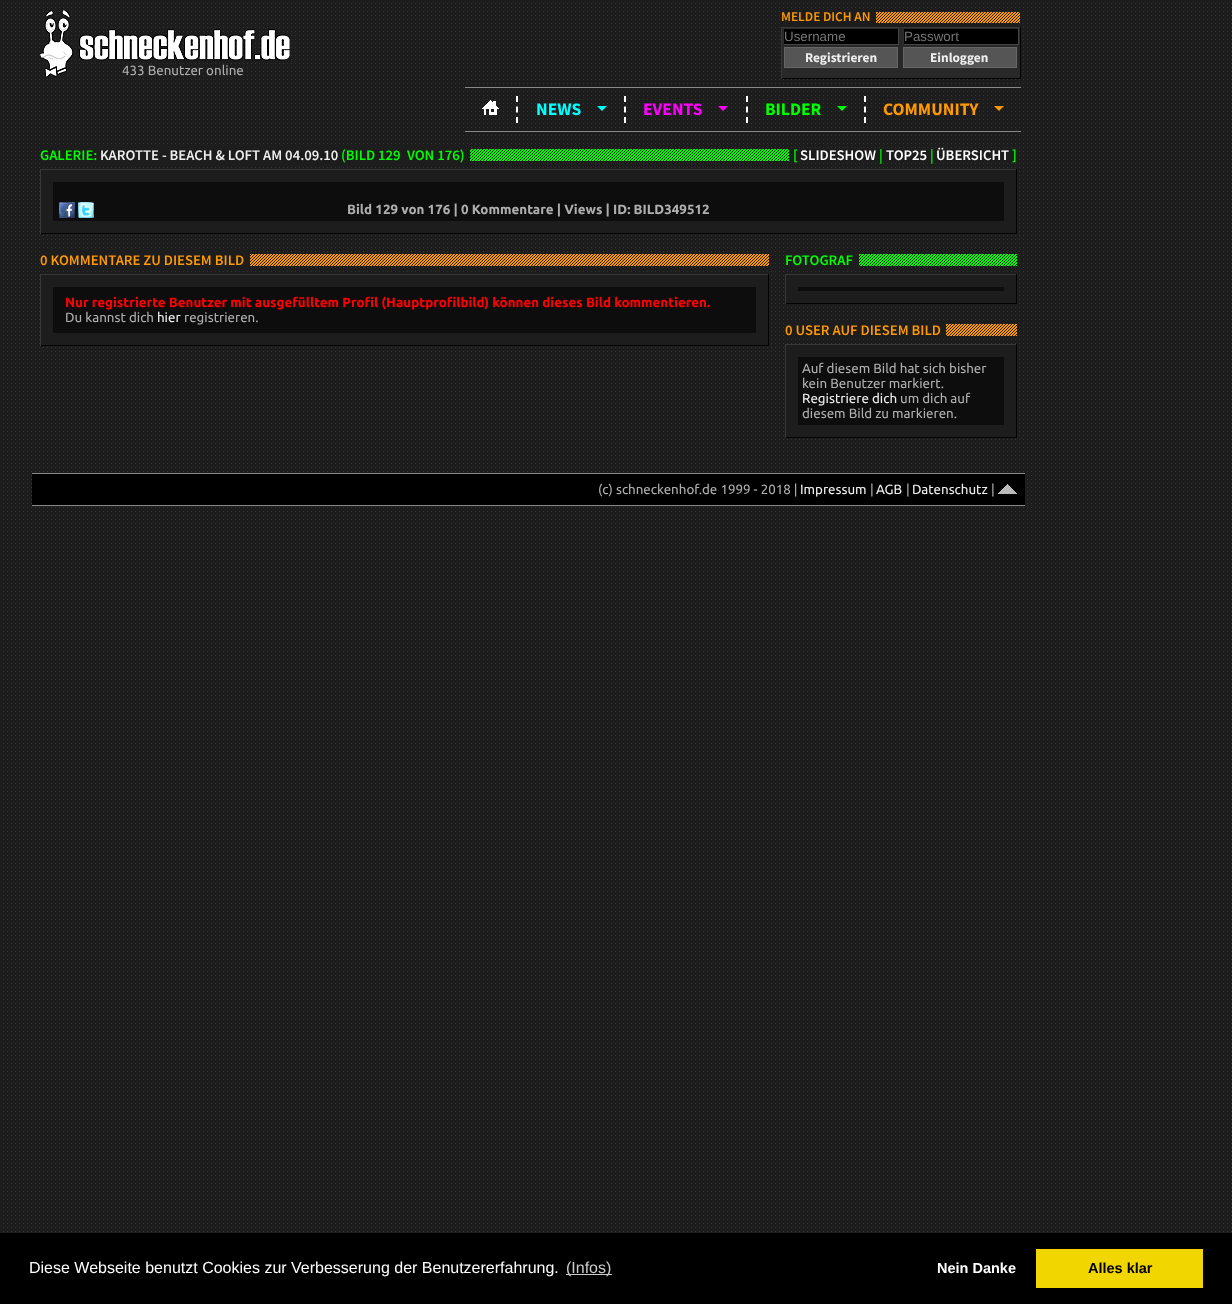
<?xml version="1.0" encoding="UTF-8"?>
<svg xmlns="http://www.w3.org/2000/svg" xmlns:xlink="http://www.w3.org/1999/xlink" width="1232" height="1304">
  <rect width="100%" height="100%" fill="#1d1d1d" />
  <image x="3" y="3" width="1229" height="1230" xlink:href="image1.png" />
  <image x="876" y="12" width="144" height="11" xlink:href="image2.png" />
  <rect x="783" y="11" width="93" height="13" fill="#1d1d1d" />
  <rect x="781" y="27" width="240" height="1" fill="#383838" />
  <rect x="1020" y="27" width="1" height="52" fill="#030303" />
  <rect x="781" y="78" width="240" height="1" fill="#030303" />
  <rect x="781" y="27" width="1" height="52" fill="#383838" />
  <rect x="782" y="28" width="238" height="50" fill="#282828" />
  <rect x="784" y="29" width="114" height="15" fill="#000000" />
  <rect x="783" y="28" width="116" height="1" fill="#2d2d2d" />
  <rect x="898" y="28" width="1" height="17" fill="#444444" />
  <rect x="783" y="44" width="116" height="1" fill="#444444" />
  <rect x="783" y="28" width="1" height="17" fill="#2d2d2d" />
  <rect x="904" y="29" width="114" height="15" fill="#000000" />
  <rect x="903" y="28" width="116" height="1" fill="#2d2d2d" />
  <rect x="1018" y="28" width="1" height="17" fill="#444444" />
  <rect x="903" y="44" width="116" height="1" fill="#444444" />
  <rect x="903" y="28" width="1" height="17" fill="#2d2d2d" />
  <rect x="784.5" y="47.5" width="113" height="20" fill="#555555" stroke="#666666" />
  <rect x="903.5" y="47.5" width="113" height="20" fill="#555555" stroke="#666666" />
  <image x="40" y="10" width="250" height="67" xlink:href="image3.png" />
  <rect x="465" y="87" width="556" height="1" fill="#888888" />
  <rect x="465" y="131" width="556" height="1" fill="#888888" />
  <image x="482" y="100" width="17" height="15" xlink:href="image4.png" />
  <path d="M 517 96 v 6 m 0 4.5 v 6 m 0 4.5 v 6" fill="none" stroke="#ffffff" stroke-width="2" />
  <path d="M 597 106 h 10 l -5 5 z" fill="#00ffff" />
  <path d="M 625 96 v 6 m 0 4.5 v 6 m 0 4.5 v 6" fill="none" stroke="#ffffff" stroke-width="2" />
  <path d="M 718 106 h 10 l -5 5 z" fill="#ff00ff" />
  <path d="M 747 96 v 6 m 0 4.5 v 6 m 0 4.5 v 6" fill="none" stroke="#ffffff" stroke-width="2" />
  <path d="M 837 106 h 10 l -5 5 z" fill="#00ff00" />
  <path d="M 865 96 v 6 m 0 4.5 v 6 m 0 4.5 v 6" fill="none" stroke="#ffffff" stroke-width="2" />
  <path d="M 994 106 h 10 l -5 5 z" fill="#ff9900" />
  <image x="470" y="149" width="319" height="12" xlink:href="image5.png" />
  <rect x="43" y="147" width="57" height="17" fill="#1d1d1d" />
  <rect x="103" y="147" width="233" height="17" fill="#1d1d1d" />
  <rect x="339" y="147" width="37" height="17" fill="#1d1d1d" />
  <rect x="379" y="147" width="25" height="17" fill="#1d1d1d" />
  <rect x="407" y="147" width="61" height="17" fill="#1d1d1d" />
  <rect x="791" y="151" width="225" height="9" fill="#1d1d1d" />
  <rect x="43" y="171" width="973" height="61" fill="#1d1d1d" />
  <rect x="40" y="169" width="977" height="1" fill="#383838" />
  <rect x="1016" y="169" width="1" height="65" fill="#030303" />
  <rect x="40" y="233" width="977" height="1" fill="#030303" />
  <rect x="40" y="169" width="1" height="65" fill="#383838" />
  <rect x="53" y="182" width="951" height="39" fill="#0d0d0d" />
  <image x="59" y="202" width="16" height="16" xlink:href="image6.png" />
  <image x="78" y="202" width="16" height="16" xlink:href="image7.png" />
  <image x="250" y="254" width="519" height="12" xlink:href="image8.png" />
  <rect x="43" y="251" width="205" height="17" fill="#1d1d1d" />
  <rect x="43" y="275" width="725" height="69" fill="#1d1d1d" />
  <rect x="40" y="274" width="729" height="1" fill="#383838" />
  <rect x="768" y="274" width="1" height="72" fill="#030303" />
  <rect x="40" y="345" width="729" height="1" fill="#030303" />
  <rect x="40" y="274" width="1" height="72" fill="#383838" />
  <rect x="53" y="287" width="703" height="46" fill="#0d0d0d" />
  <image x="859" y="254" width="158" height="12" xlink:href="image9.png" />
  <rect x="787" y="251" width="69" height="17" fill="#1d1d1d" />
  <rect x="787" y="275" width="229" height="25" fill="#1d1d1d" />
  <rect x="785" y="274" width="232" height="1" fill="#383838" />
  <rect x="1016" y="274" width="1" height="30" fill="#030303" />
  <rect x="785" y="303" width="232" height="1" fill="#030303" />
  <rect x="785" y="274" width="1" height="30" fill="#383838" />
  <rect x="798" y="287" width="206" height="4" fill="#0d0d0d" />
  <image x="946" y="324" width="71" height="12" xlink:href="image10.png" />
  <rect x="787" y="323" width="157" height="13" fill="#1d1d1d" />
  <rect x="787" y="347" width="229" height="89" fill="#1d1d1d" />
  <rect x="785" y="344" width="232" height="1" fill="#383838" />
  <rect x="1016" y="344" width="1" height="94" fill="#030303" />
  <rect x="785" y="437" width="232" height="1" fill="#030303" />
  <rect x="785" y="344" width="1" height="94" fill="#383838" />
  <rect x="798" y="357" width="206" height="68" fill="#0d0d0d" />
  <rect x="32" y="474" width="993" height="31" fill="#000000" />
  <rect x="32" y="473" width="993" height="1" fill="#888888" />
  <rect x="32" y="505" width="993" height="1" fill="#888888" />
  <image x="998" y="484" width="19" height="10" xlink:href="image11.png" />
  <rect y="1233" width="1232" height="71" fill="#000000" />
  <rect x="566" y="1274" width="46" height="1" fill="#cccccc" />
  <rect x="1036" y="1249" width="167" height="39" fill="#f1d600" />
  <text x="781" y="21" style="font-family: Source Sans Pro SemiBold; font-size: 13.35px; font-weight: 600; fill: #ff9900">MELDE DICH AN</text>
  <text x="784" y="41" style="font-family: Liberation Sans; font-size: 13.35px; fill: #757575">Username</text>
  <text x="904" y="41" style="font-family: Liberation Sans; font-size: 13.35px; fill: #757575">Passwort</text>
  <text x="805" y="62" style="font-family: Source Sans Pro; font-size: 13.35px; font-weight: bold; fill: #eeeeee">Registrieren</text>
  <text x="930" y="62" style="font-family: Source Sans Pro; font-size: 13.35px; font-weight: bold; fill: #eeeeee">Einloggen</text>
  <text x="122" y="75" style="font-family: Ubuntu; font-size: 13.35px; fill: #aeaeae">433 Benutzer online</text>
  <text x="536" y="115" style="font-family: Source Sans Pro; font-size: 17.5px; font-weight: bold; fill: #00ffff">NEWS</text>
  <text x="643" y="115" style="font-family: Source Sans Pro; font-size: 17.5px; font-weight: bold; fill: #ff00ff">EVENTS</text>
  <text x="765" y="115" style="font-family: Source Sans Pro; font-size: 17.5px; font-weight: bold; fill: #00ff00">BILDER</text>
  <text x="883" y="115" style="font-family: Source Sans Pro; font-size: 17.5px; font-weight: bold; fill: #ff9900">COMMUNITY</text>
  <text x="40" y="160" style="font-family: Source Sans Pro SemiBold; font-size: 14.7px; font-weight: 600; fill: #00ff00">GALERIE:</text>
  <text x="100" y="160" style="font-family: Source Sans Pro SemiBold; font-size: 14.7px; font-weight: 600; fill: #eeeeee">KAROTTE - BEACH &amp; LOFT AM 04.09.10</text>
  <text x="341" y="160" style="font-family: Source Sans Pro SemiBold; font-size: 14.7px; font-weight: 600; fill: #00ff00">(BILD</text>
  <text x="378" y="160" style="font-family: Source Sans Pro SemiBold; font-size: 14.7px; font-weight: 600; fill: #00ff00">129</text>
  <text x="407" y="160" style="font-family: Source Sans Pro SemiBold; font-size: 14.7px; font-weight: 600; fill: #00ff00">VON 176)</text>
  <text x="793" y="160" style="font-family: Source Sans Pro SemiBold; font-size: 14.7px; font-weight: 600; fill: #00ff00">[</text>
  <text x="800" y="160" style="font-family: Source Sans Pro SemiBold; font-size: 14.7px; font-weight: 600; fill: #ffffff">SLIDESHOW</text>
  <text x="879" y="160" style="font-family: Source Sans Pro SemiBold; font-size: 14.7px; font-weight: 600; fill: #00ff00">|</text>
  <text x="886" y="160" style="font-family: Source Sans Pro SemiBold; font-size: 14.7px; font-weight: 600; fill: #ffffff">TOP25</text>
  <text x="930" y="160" style="font-family: Source Sans Pro SemiBold; font-size: 14.7px; font-weight: 600; fill: #00ff00">|</text>
  <text x="936" y="160" style="font-family: Source Sans Pro SemiBold; font-size: 14.7px; font-weight: 600; fill: #ffffff">ÜBERSICHT</text>
  <text x="1012" y="160" style="font-family: Source Sans Pro SemiBold; font-size: 14.7px; font-weight: 600; fill: #00ff00">]</text>
  <text x="347" y="214" style="font-family: Ubuntu; font-size: 13.35px; font-weight: bold; fill: #aeaeae">Bild 129 von 176 | 0 Kommentare | Views | ID: BILD349512</text>
  <text x="40" y="265" style="font-family: Source Sans Pro SemiBold; font-size: 14.7px; font-weight: 600; fill: #ff9900">0 KOMMENTARE ZU DIESEM BILD</text>
  <text x="65" y="307" style="font-family: Ubuntu; font-size: 13.35px; font-weight: bold; fill: #ff0000">Nur registrierte Benutzer mit ausgefülltem Profil (Hauptprofilbild) können dieses Bild kommentieren.</text>
  <text x="65" y="322" style="font-family: Ubuntu; font-size: 13.35px; fill: #aeaeae">Du kannst dich</text>
  <text x="157" y="322" style="font-family: Ubuntu; font-size: 13.35px; fill: #eeeeee">hier</text>
  <text x="184" y="322" style="font-family: Ubuntu; font-size: 13.35px; fill: #aeaeae">registrieren.</text>
  <text x="785" y="265" style="font-family: Source Sans Pro SemiBold; font-size: 14.7px; font-weight: 600; fill: #00ff00">FOTOGRAF</text>
  <text x="785" y="335" style="font-family: Source Sans Pro SemiBold; font-size: 14.7px; font-weight: 600; fill: #ff9900">0 USER AUF DIESEM BILD</text>
  <text x="802" y="373" style="font-family: Ubuntu; font-size: 13.35px; fill: #aeaeae">Auf diesem Bild hat sich bisher</text>
  <text x="802" y="388" style="font-family: Ubuntu; font-size: 13.35px; fill: #aeaeae">kein Benutzer markiert.</text>
  <text x="802" y="403" style="font-family: Ubuntu; font-size: 13.35px; fill: #eeeeee">Registriere dich</text>
  <text x="900" y="403" style="font-family: Ubuntu; font-size: 13.35px; fill: #aeaeae">um dich auf</text>
  <text x="802" y="418" style="font-family: Ubuntu; font-size: 13.35px; fill: #aeaeae">diesem Bild zu markieren.</text>
  <text x="598" y="494" style="font-family: Ubuntu; font-size: 13.35px; fill: #aeaeae">(c) schneckenhof.de 1999 - 2018 |</text>
  <text x="800" y="494" style="font-family: Ubuntu; font-size: 13.35px; fill: #eeeeee">Impressum</text>
  <text x="870" y="494" style="font-family: Ubuntu; font-size: 13.35px; fill: #aeaeae">|</text>
  <text x="876" y="494" style="font-family: Ubuntu; font-size: 13.35px; fill: #eeeeee">AGB</text>
  <text x="906" y="494" style="font-family: Ubuntu; font-size: 13.35px; fill: #aeaeae">|</text>
  <text x="912" y="494" style="font-family: Ubuntu; font-size: 13.35px; fill: #eeeeee">Datenschutz</text>
  <text x="991" y="494" style="font-family: Ubuntu; font-size: 13.35px; fill: #aeaeae">|</text>
  <text x="29" y="1273" style="font-family: Liberation Sans; font-size: 16px; fill: #ffffff">Diese Webseite benutzt Cookies zur Verbesserung der Benutzererfahrung.</text>
  <text x="566" y="1273" style="font-family: Liberation Sans; font-size: 16px; fill: #cccccc">(Infos)</text>
  <text x="937" y="1273" style="font-family: Liberation Sans; font-size: 14.5px; font-weight: bold; fill: #ffffff">Nein Danke</text>
  <text x="1088" y="1273" style="font-family: Liberation Sans; font-size: 14.5px; font-weight: bold; fill: #000000">Alles klar</text>
</svg>
